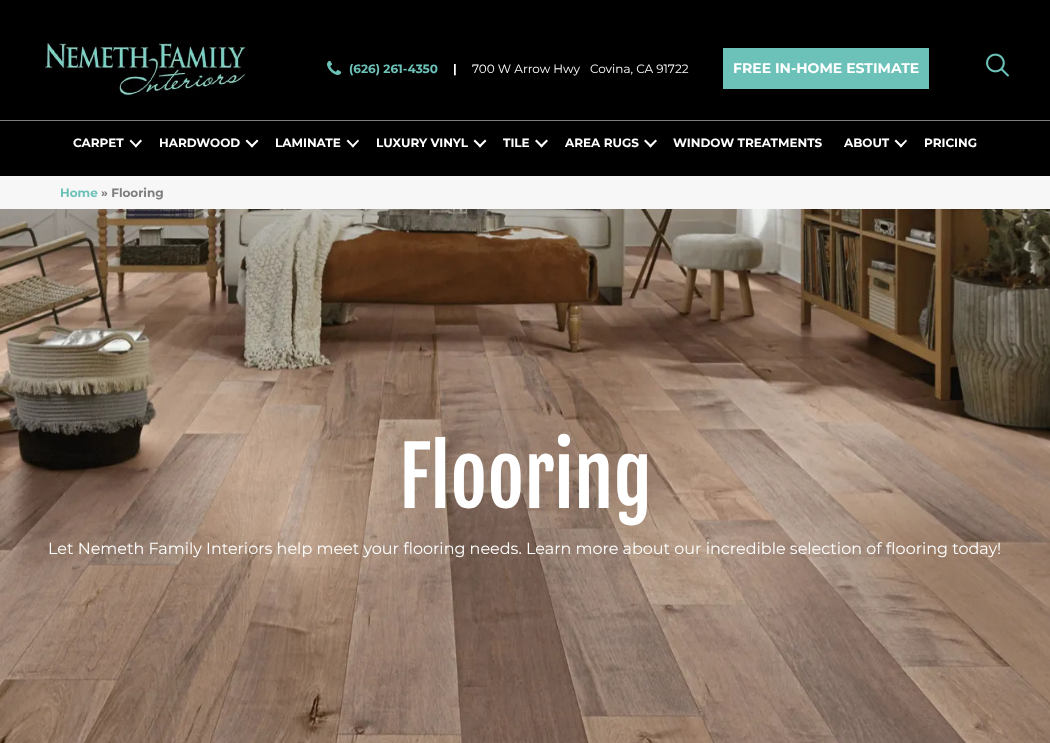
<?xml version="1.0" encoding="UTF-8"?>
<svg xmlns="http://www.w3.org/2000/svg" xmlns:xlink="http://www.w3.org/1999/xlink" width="1050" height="743">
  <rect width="100%" height="100%" fill="#f7f7f7" />
  <rect width="1050" height="120" fill="#000000" />
  <image x="45" y="42" width="201" height="54" xlink:href="image1.png" />
  <image x="327" y="60" width="15" height="15" xlink:href="image2.png" />
  <rect x="723" y="48" width="206" height="41" fill="#6cc2b9" />
  <image x="986" y="53" width="23" height="24" xlink:href="image3.png" />
  <rect y="121" width="1050" height="55" fill="#000000" />
  <rect y="120" width="1050" height="1" fill="#7e7e7e" />
  <path d="M 140.5 139.5 l 1.5 1.5 l -6 6.5 l -1.5 -1.5 z" fill="#ffffff" />
  <path d="M 131 139.5 l 6 6.5 l -1 1.5 l -6.5 -6.5 z" fill="#ffffff" />
  <path d="M 257 139.5 l 1.5 1.5 l -6.5 6.5 l -1.5 -1.5 z" fill="#ffffff" />
  <path d="M 247 139.5 l 6.5 6.5 l -1.5 1.5 l -6.5 -6.5 z" fill="#ffffff" />
  <path d="M 358 139.5 l 1 1.5 l -6 6.5 l -1.5 -1.5 z" fill="#ffffff" />
  <path d="M 348 139.5 l 6 6.5 l -1 1.5 l -6.5 -6.5 z" fill="#ffffff" />
  <path d="M 485 139.5 l 1.5 1.5 l -6.5 6.5 l -1.5 -1.5 z" fill="#ffffff" />
  <path d="M 475 139.5 l 6.5 6.5 l -1.5 1.5 l -6.5 -6.5 z" fill="#ffffff" />
  <path d="M 546.5 139.5 l 1.5 1.5 l -6.5 6.5 l -1.5 -1.5 z" fill="#ffffff" />
  <path d="M 536.5 139.5 l 6.5 6.5 l -1.5 1.5 l -6.5 -6.5 z" fill="#ffffff" />
  <path d="M 655.5 139.5 l 1.5 1.5 l -6.5 6.5 l -1.5 -1.5 z" fill="#ffffff" />
  <path d="M 645.5 139.5 l 6.5 6.5 l -1.5 1.5 l -6.5 -6.5 z" fill="#ffffff" />
  <path d="M 906 139.5 l 1 1.5 l -6 6.5 l -1.5 -1.5 z" fill="#ffffff" />
  <path d="M 896 139.5 l 6.5 6.5 l -1.5 1.5 l -6.5 -6.5 z" fill="#ffffff" />
  <image x="0" y="209" width="1050" height="534" xlink:href="image4.png" />
  <text x="349" y="73" style="font-family: Montserrat; font-size: 12px; font-weight: bold; fill: #6cc2b9">(626) 261-4350</text>
  <text x="453" y="73" style="font-family: Montserrat; font-size: 12px; font-weight: bold; fill: #ffffff">|</text>
  <text x="472" y="73" style="font-family: Montserrat; font-size: 12px; fill: #ffffff">700 W Arrow Hwy</text>
  <text x="590" y="73" style="font-family: Montserrat; font-size: 12px; fill: #ffffff">Covina, CA 91722</text>
  <text x="733" y="73" style="font-family: Montserrat; font-size: 14px; font-weight: bold; fill: #ffffff">FREE IN-HOME ESTIMATE</text>
  <text x="73" y="147" style="font-family: Montserrat; font-size: 12px; font-weight: bold; fill: #ffffff">CARPET</text>
  <text x="159" y="147" style="font-family: Montserrat; font-size: 12px; font-weight: bold; fill: #ffffff">HARDWOOD</text>
  <text x="275" y="147" style="font-family: Montserrat; font-size: 12px; font-weight: bold; fill: #ffffff">LAMINATE</text>
  <text x="376" y="147" style="font-family: Montserrat; font-size: 12px; font-weight: bold; fill: #ffffff">LUXURY VINYL</text>
  <text x="503" y="147" style="font-family: Montserrat; font-size: 12px; font-weight: bold; fill: #ffffff">TILE</text>
  <text x="565" y="147" style="font-family: Montserrat; font-size: 12px; font-weight: bold; fill: #ffffff">AREA RUGS</text>
  <text x="673" y="147" style="font-family: Montserrat; font-size: 12px; font-weight: bold; fill: #ffffff">WINDOW TREATMENTS</text>
  <text x="844" y="147" style="font-family: Montserrat; font-size: 12px; font-weight: bold; fill: #ffffff">ABOUT</text>
  <text x="924" y="147" style="font-family: Montserrat; font-size: 12px; font-weight: bold; fill: #ffffff">PRICING</text>
  <text x="60" y="197" style="font-family: Montserrat; font-size: 12px; font-weight: bold; fill: #6cc2b9">Home</text>
  <text x="101" y="197" style="font-family: Montserrat; font-size: 12px; font-weight: bold; fill: #7e7e7e">» Flooring</text>
  <text x="399" y="508" style="font-family: Fjalla One; font-size: 80px; fill: #ffffff">Flooring</text>
  <text x="48" y="554" style="font-family: Montserrat; font-size: 16px; fill: #ffffff">Let Nemeth Family Interiors help meet your flooring needs. Learn more about our incredible selection of flooring today!</text>
</svg>
